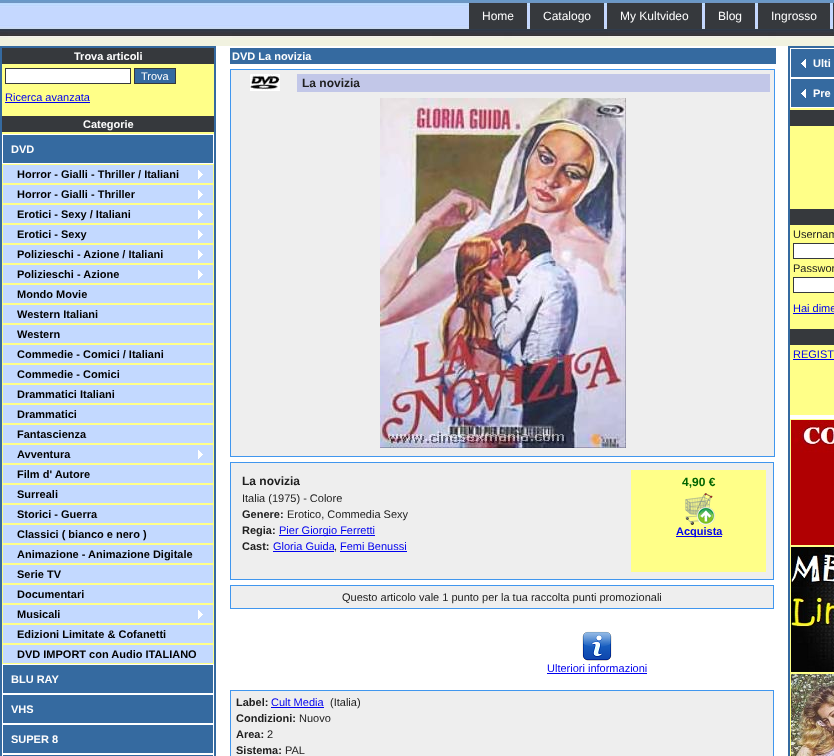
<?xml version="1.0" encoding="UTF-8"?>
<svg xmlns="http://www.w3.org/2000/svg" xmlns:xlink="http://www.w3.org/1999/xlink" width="834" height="756">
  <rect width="100%" height="100%" fill="#ffffff" />
  <image x="0" y="0" width="834" height="46" xlink:href="image1.png" />
  <rect x="469" y="3" width="58" height="26" fill="#36393d" />
  <rect x="530" y="3" width="74" height="26" fill="#36393d" />
  <rect x="607" y="3" width="95" height="26" fill="#36393d" />
  <rect x="705" y="3" width="50" height="26" fill="#36393d" />
  <rect x="758" y="3" width="72" height="26" fill="#36393d" />
  <rect x="833" y="3" width="1" height="26" fill="#36393d" />
  <rect y="46" width="216" height="710" fill="#356aa0" />
  <rect x="2" y="48" width="212" height="16" fill="#36393d" />
  <rect x="2" y="64" width="212" height="52" fill="#ffff88" />
  <rect x="5.5" y="68.5" width="125" height="15" fill="#ffffff" stroke="#36393d" />
  <rect x="134.5" y="68.5" width="41" height="15" fill="#356aa0" stroke="#36393d" />
  <rect x="5" y="102" width="85" height="1" fill="#0000ee" />
  <rect x="2" y="116" width="212" height="16" fill="#36393d" />
  <rect x="2" y="132" width="212" height="2" fill="#ffff88" />
  <rect x="2.5" y="134.5" width="211" height="29" fill="none" stroke="#ffffff" />
  <rect x="3" y="165" width="210" height="18" fill="#c3d9ff" />
  <image x="198" y="170" width="5" height="9" xlink:href="image2.png" />
  <rect x="2.5" y="164.5" width="211" height="19" fill="none" stroke="#ffff88" />
  <rect x="3" y="185" width="210" height="18" fill="#c3d9ff" />
  <image x="198" y="190" width="5" height="9" xlink:href="image2.png" />
  <rect x="2.5" y="184.5" width="211" height="19" fill="none" stroke="#ffff88" />
  <rect x="3" y="205" width="210" height="18" fill="#c3d9ff" />
  <image x="198" y="210" width="5" height="9" xlink:href="image2.png" />
  <rect x="2.5" y="204.5" width="211" height="19" fill="none" stroke="#ffff88" />
  <rect x="3" y="225" width="210" height="18" fill="#c3d9ff" />
  <image x="198" y="230" width="5" height="9" xlink:href="image2.png" />
  <rect x="2.5" y="224.5" width="211" height="19" fill="none" stroke="#ffff88" />
  <rect x="3" y="245" width="210" height="18" fill="#c3d9ff" />
  <image x="198" y="250" width="5" height="9" xlink:href="image2.png" />
  <rect x="2.5" y="244.5" width="211" height="19" fill="none" stroke="#ffff88" />
  <rect x="3" y="265" width="210" height="18" fill="#c3d9ff" />
  <image x="198" y="270" width="5" height="9" xlink:href="image2.png" />
  <rect x="2.5" y="264.5" width="211" height="19" fill="none" stroke="#ffff88" />
  <rect x="2.5" y="284.5" width="211" height="19" fill="#c3d9ff" stroke="#ffff88" />
  <rect x="2.5" y="304.5" width="211" height="19" fill="#c3d9ff" stroke="#ffff88" />
  <rect x="2.5" y="324.5" width="211" height="19" fill="#c3d9ff" stroke="#ffff88" />
  <rect x="2.5" y="344.5" width="211" height="19" fill="#c3d9ff" stroke="#ffff88" />
  <rect x="2.5" y="364.5" width="211" height="19" fill="#c3d9ff" stroke="#ffff88" />
  <rect x="2.5" y="384.5" width="211" height="19" fill="#c3d9ff" stroke="#ffff88" />
  <rect x="2.5" y="404.5" width="211" height="19" fill="#c3d9ff" stroke="#ffff88" />
  <rect x="2.5" y="424.5" width="211" height="19" fill="#c3d9ff" stroke="#ffff88" />
  <rect x="3" y="445" width="210" height="18" fill="#c3d9ff" />
  <image x="198" y="450" width="5" height="9" xlink:href="image2.png" />
  <rect x="2.5" y="444.5" width="211" height="19" fill="none" stroke="#ffff88" />
  <rect x="2.5" y="464.5" width="211" height="19" fill="#c3d9ff" stroke="#ffff88" />
  <rect x="2.5" y="484.5" width="211" height="19" fill="#c3d9ff" stroke="#ffff88" />
  <rect x="2.5" y="504.5" width="211" height="19" fill="#c3d9ff" stroke="#ffff88" />
  <rect x="2.5" y="524.5" width="211" height="19" fill="#c3d9ff" stroke="#ffff88" />
  <rect x="2.5" y="544.5" width="211" height="19" fill="#c3d9ff" stroke="#ffff88" />
  <rect x="2.5" y="564.5" width="211" height="19" fill="#c3d9ff" stroke="#ffff88" />
  <rect x="2.5" y="584.5" width="211" height="19" fill="#c3d9ff" stroke="#ffff88" />
  <rect x="3" y="605" width="210" height="18" fill="#c3d9ff" />
  <image x="198" y="610" width="5" height="9" xlink:href="image2.png" />
  <rect x="2.5" y="604.5" width="211" height="19" fill="none" stroke="#ffff88" />
  <rect x="2.5" y="624.5" width="211" height="19" fill="#c3d9ff" stroke="#ffff88" />
  <rect x="2.5" y="644.5" width="211" height="19" fill="#c3d9ff" stroke="#ffff88" />
  <rect x="2.5" y="664.5" width="211" height="29" fill="none" stroke="#ffffff" />
  <rect x="2.5" y="694.5" width="211" height="29" fill="none" stroke="#ffffff" />
  <rect x="2.5" y="724.5" width="211" height="29" fill="none" stroke="#ffffff" />
  <rect x="2.5" y="754.5" width="211" height="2" fill="none" stroke="#ffffff" />
  <rect x="230" y="48" width="546" height="16" fill="#356aa0" />
  <rect x="230.5" y="69.5" width="544" height="387" fill="#eeeeee" stroke="#4096ee" />
  <image x="250" y="74" width="30" height="17" xlink:href="image3.png" />
  <rect x="297" y="74" width="473" height="18" fill="#c2c7e8" />
  <image x="380" y="98" width="246" height="350" xlink:href="image4.png" />
  <rect x="230.5" y="462.5" width="543" height="117" fill="#eeeeee" stroke="#4096ee" />
  <rect x="279" y="535" width="96" height="1" fill="#0000ee" />
  <rect x="273" y="551" width="61" height="1" fill="#0000ee" />
  <rect x="340" y="551" width="67" height="1" fill="#0000ee" />
  <rect x="631" y="470" width="135" height="102" fill="#ffff88" />
  <image x="685" y="493" width="30" height="32" xlink:href="image5.png" />
  <rect x="676" y="536" width="46" height="1" fill="#0000ee" />
  <rect x="230.5" y="585.5" width="543" height="23" fill="#eeeeee" stroke="#4096ee" />
  <image x="582" y="631" width="30" height="30" xlink:href="image6.png" />
  <rect x="547" y="673" width="100" height="1" fill="#0000ee" />
  <rect x="230.5" y="690.5" width="543" height="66" fill="#eeeeee" stroke="#4096ee" />
  <rect x="271" y="707" width="53" height="1" fill="#0000ee" />
  <rect x="788" y="46" width="46" height="710" fill="#356aa0" />
  <rect x="790" y="108" width="44" height="2" fill="#ffff88" />
  <image x="801" y="59" width="5" height="9" xlink:href="image7.png" />
  <rect x="790.5" y="48.5" width="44" height="29" fill="none" stroke="#ffffff" />
  <image x="801" y="89" width="5" height="9" xlink:href="image7.png" />
  <rect x="790.5" y="78.5" width="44" height="29" fill="none" stroke="#ffffff" />
  <rect x="790" y="110" width="44" height="16" fill="#36393d" />
  <rect x="790" y="126" width="44" height="83" fill="#ffff88" />
  <rect x="790" y="209" width="44" height="16" fill="#36393d" />
  <rect x="790" y="225" width="44" height="190" fill="#ffff88" />
  <rect x="793.5" y="243.5" width="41" height="15" fill="#ffffff" stroke="#36393d" />
  <rect x="793.5" y="277.5" width="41" height="15" fill="#ffffff" stroke="#36393d" />
  <rect x="793" y="313" width="41" height="1" fill="#0000ee" />
  <rect x="790" y="329" width="44" height="16" fill="#36393d" />
  <rect x="793" y="359" width="41" height="1" fill="#0000ee" />
  <rect x="790" y="415" width="44" height="4" fill="#ffffff" />
  <rect x="790.5" y="419.5" width="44" height="126" fill="none" stroke="#ffff88" />
  <image x="791" y="420" width="43" height="125" xlink:href="image8.png" />
  <rect x="790.5" y="546.5" width="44" height="126" fill="none" stroke="#ffff88" />
  <image x="791" y="547" width="43" height="125" xlink:href="image9.png" />
  <rect x="790.5" y="673.5" width="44" height="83" fill="none" stroke="#ffff88" />
  <image x="791" y="674" width="43" height="82" xlink:href="image10.png" />
  <text x="482" y="20" style="font-family: Liberation Sans; font-size: 12px; fill: #fdfdfd">Home</text>
  <text x="543" y="20" style="font-family: Liberation Sans; font-size: 12px; fill: #fdfdfd">Catalogo</text>
  <text x="620" y="20" style="font-family: Liberation Sans; font-size: 12px; fill: #fdfdfd">My Kultvideo</text>
  <text x="718" y="20" style="font-family: Liberation Sans; font-size: 12px; fill: #fdfdfd">Blog</text>
  <text x="771" y="20" style="font-family: Liberation Sans; font-size: 12px; fill: #fdfdfd">Ingrosso</text>
  <text x="74" y="60" style="font-family: Liberation Sans; font-size: 11px; font-weight: bold; fill: #fdfdfd">Trova articoli</text>
  <text x="141" y="80" style="font-family: Liberation Sans; font-size: 11px; fill: #fdfdfd">Trova</text>
  <text x="5" y="101" style="font-family: Liberation Sans; font-size: 11px; fill: #0000ee">Ricerca avanzata</text>
  <text x="83" y="128" style="font-family: Liberation Sans; font-size: 11px; font-weight: bold; fill: #fdfdfd">Categorie</text>
  <text x="11" y="153" style="font-family: Liberation Sans; font-size: 11px; font-weight: bold; fill: #fdfdfd">DVD</text>
  <text x="17" y="178" style="font-family: Liberation Sans; font-size: 11px; font-weight: bold; fill: #000000">Horror - Gialli - Thriller / Italiani</text>
  <text x="17" y="198" style="font-family: Liberation Sans; font-size: 11px; font-weight: bold; fill: #000000">Horror - Gialli - Thriller</text>
  <text x="17" y="218" style="font-family: Liberation Sans; font-size: 11px; font-weight: bold; fill: #000000">Erotici - Sexy / Italiani</text>
  <text x="17" y="238" style="font-family: Liberation Sans; font-size: 11px; font-weight: bold; fill: #000000">Erotici - Sexy</text>
  <text x="17" y="258" style="font-family: Liberation Sans; font-size: 11px; font-weight: bold; fill: #000000">Polizieschi - Azione / Italiani</text>
  <text x="17" y="278" style="font-family: Liberation Sans; font-size: 11px; font-weight: bold; fill: #000000">Polizieschi - Azione</text>
  <text x="17" y="298" style="font-family: Liberation Sans; font-size: 11px; font-weight: bold; fill: #000000">Mondo Movie</text>
  <text x="17" y="318" style="font-family: Liberation Sans; font-size: 11px; font-weight: bold; fill: #000000">Western Italiani</text>
  <text x="17" y="338" style="font-family: Liberation Sans; font-size: 11px; font-weight: bold; fill: #000000">Western</text>
  <text x="17" y="358" style="font-family: Liberation Sans; font-size: 11px; font-weight: bold; fill: #000000">Commedie - Comici / Italiani</text>
  <text x="17" y="378" style="font-family: Liberation Sans; font-size: 11px; font-weight: bold; fill: #000000">Commedie - Comici</text>
  <text x="17" y="398" style="font-family: Liberation Sans; font-size: 11px; font-weight: bold; fill: #000000">Drammatici Italiani</text>
  <text x="17" y="418" style="font-family: Liberation Sans; font-size: 11px; font-weight: bold; fill: #000000">Drammatici</text>
  <text x="17" y="438" style="font-family: Liberation Sans; font-size: 11px; font-weight: bold; fill: #000000">Fantascienza</text>
  <text x="17" y="458" style="font-family: Liberation Sans; font-size: 11px; font-weight: bold; fill: #000000">Avventura</text>
  <text x="17" y="478" style="font-family: Liberation Sans; font-size: 11px; font-weight: bold; fill: #000000">Film d' Autore</text>
  <text x="17" y="498" style="font-family: Liberation Sans; font-size: 11px; font-weight: bold; fill: #000000">Surreali</text>
  <text x="17" y="518" style="font-family: Liberation Sans; font-size: 11px; font-weight: bold; fill: #000000">Storici - Guerra</text>
  <text x="17" y="538" style="font-family: Liberation Sans; font-size: 11px; font-weight: bold; fill: #000000">Classici ( bianco e nero )</text>
  <text x="17" y="558" style="font-family: Liberation Sans; font-size: 11px; font-weight: bold; fill: #000000">Animazione - Animazione Digitale</text>
  <text x="17" y="578" style="font-family: Liberation Sans; font-size: 11px; font-weight: bold; fill: #000000">Serie TV</text>
  <text x="17" y="598" style="font-family: Liberation Sans; font-size: 11px; font-weight: bold; fill: #000000">Documentari</text>
  <text x="17" y="618" style="font-family: Liberation Sans; font-size: 11px; font-weight: bold; fill: #000000">Musicali</text>
  <text x="17" y="638" style="font-family: Liberation Sans; font-size: 11px; font-weight: bold; fill: #000000">Edizioni Limitate &amp; Cofanetti</text>
  <text x="17" y="658" style="font-family: Liberation Sans; font-size: 11px; font-weight: bold; fill: #000000">DVD IMPORT con Audio ITALIANO</text>
  <text x="11" y="683" style="font-family: Liberation Sans; font-size: 11px; font-weight: bold; fill: #fdfdfd">BLU RAY</text>
  <text x="11" y="713" style="font-family: Liberation Sans; font-size: 11px; font-weight: bold; fill: #fdfdfd">VHS</text>
  <text x="11" y="743" style="font-family: Liberation Sans; font-size: 11px; font-weight: bold; fill: #fdfdfd">SUPER 8</text>
  <text x="232" y="60" style="font-family: Liberation Sans; font-size: 11px; font-weight: bold; fill: #fdfdfd">DVD La novizia</text>
  <text x="302" y="87" style="font-family: Liberation Sans; font-size: 12px; font-weight: bold; fill: #202020">La novizia</text>
  <text x="242" y="485" style="font-family: Liberation Sans; font-size: 12px; font-weight: bold; fill: #202020">La novizia</text>
  <text x="242" y="502" style="font-family: Liberation Sans; font-size: 11px; fill: #202020">Italia (1975) - Colore</text>
  <text x="242" y="518" style="font-family: Liberation Sans; font-size: 11px; font-weight: bold; fill: #202020">Genere:</text>
  <text x="287" y="518" style="font-family: Liberation Sans; font-size: 11px; fill: #202020">Erotico, Commedia Sexy</text>
  <text x="242" y="534" style="font-family: Liberation Sans; font-size: 11px; font-weight: bold; fill: #202020">Regia:</text>
  <text x="279" y="534" style="font-family: Liberation Sans; font-size: 11px; fill: #0000ee">Pier Giorgio Ferretti</text>
  <text x="242" y="550" style="font-family: Liberation Sans; font-size: 11px; font-weight: bold; fill: #202020">Cast:</text>
  <text x="273" y="550" style="font-family: Liberation Sans; font-size: 11px; fill: #0000ee">Gloria Guida</text>
  <text x="334" y="550" style="font-family: Liberation Sans; font-size: 11px; fill: #202020">,</text>
  <text x="340" y="550" style="font-family: Liberation Sans; font-size: 11px; fill: #0000ee">Femi Benussi</text>
  <text x="682" y="486" style="font-family: Liberation Sans; font-size: 12px; font-weight: bold; fill: #006400">4,90 €</text>
  <text x="676" y="535" style="font-family: Liberation Sans; font-size: 11px; font-weight: bold; fill: #0000ee">Acquista</text>
  <text x="342" y="601" style="font-family: Liberation Sans; font-size: 11px; fill: #202020">Questo articolo vale 1 punto per la tua raccolta punti promozionali</text>
  <text x="547" y="672" style="font-family: Liberation Sans; font-size: 11px; fill: #0000ee">Ulteriori informazioni</text>
  <text x="236" y="706" style="font-family: Liberation Sans; font-size: 11px; font-weight: bold; fill: #202020">Label:</text>
  <text x="271" y="706" style="font-family: Liberation Sans; font-size: 11px; fill: #0000ee">Cult Media</text>
  <text x="330" y="706" style="font-family: Liberation Sans; font-size: 11px; fill: #202020">(Italia)</text>
  <text x="236" y="722" style="font-family: Liberation Sans; font-size: 11px; font-weight: bold; fill: #202020">Condizioni:</text>
  <text x="299" y="722" style="font-family: Liberation Sans; font-size: 11px; fill: #202020">Nuovo</text>
  <text x="236" y="738" style="font-family: Liberation Sans; font-size: 11px; font-weight: bold; fill: #202020">Area:</text>
  <text x="267" y="738" style="font-family: Liberation Sans; font-size: 11px; fill: #202020">2</text>
  <text x="236" y="754" style="font-family: Liberation Sans; font-size: 11px; font-weight: bold; fill: #202020">Sistema:</text>
  <text x="285" y="754" style="font-family: Liberation Sans; font-size: 11px; fill: #202020">PAL</text>
  <text x="813" y="67" style="font-family: Liberation Sans; font-size: 11px; font-weight: bold; fill: #fdfdfd">Ulti</text>
  <text x="813" y="97" style="font-family: Liberation Sans; font-size: 11px; font-weight: bold; fill: #fdfdfd">Pre</text>
  <text x="793" y="238" style="font-family: Liberation Sans; font-size: 11px; fill: #202020">Usernam</text>
  <text x="793" y="272" style="font-family: Liberation Sans; font-size: 11px; fill: #202020">Passwor</text>
  <text x="793" y="312" style="font-family: Liberation Sans; font-size: 11px; fill: #0000ee">Hai dime</text>
  <text x="793" y="358" style="font-family: Liberation Sans; font-size: 11px; fill: #0000ee">REGIST</text>
</svg>
